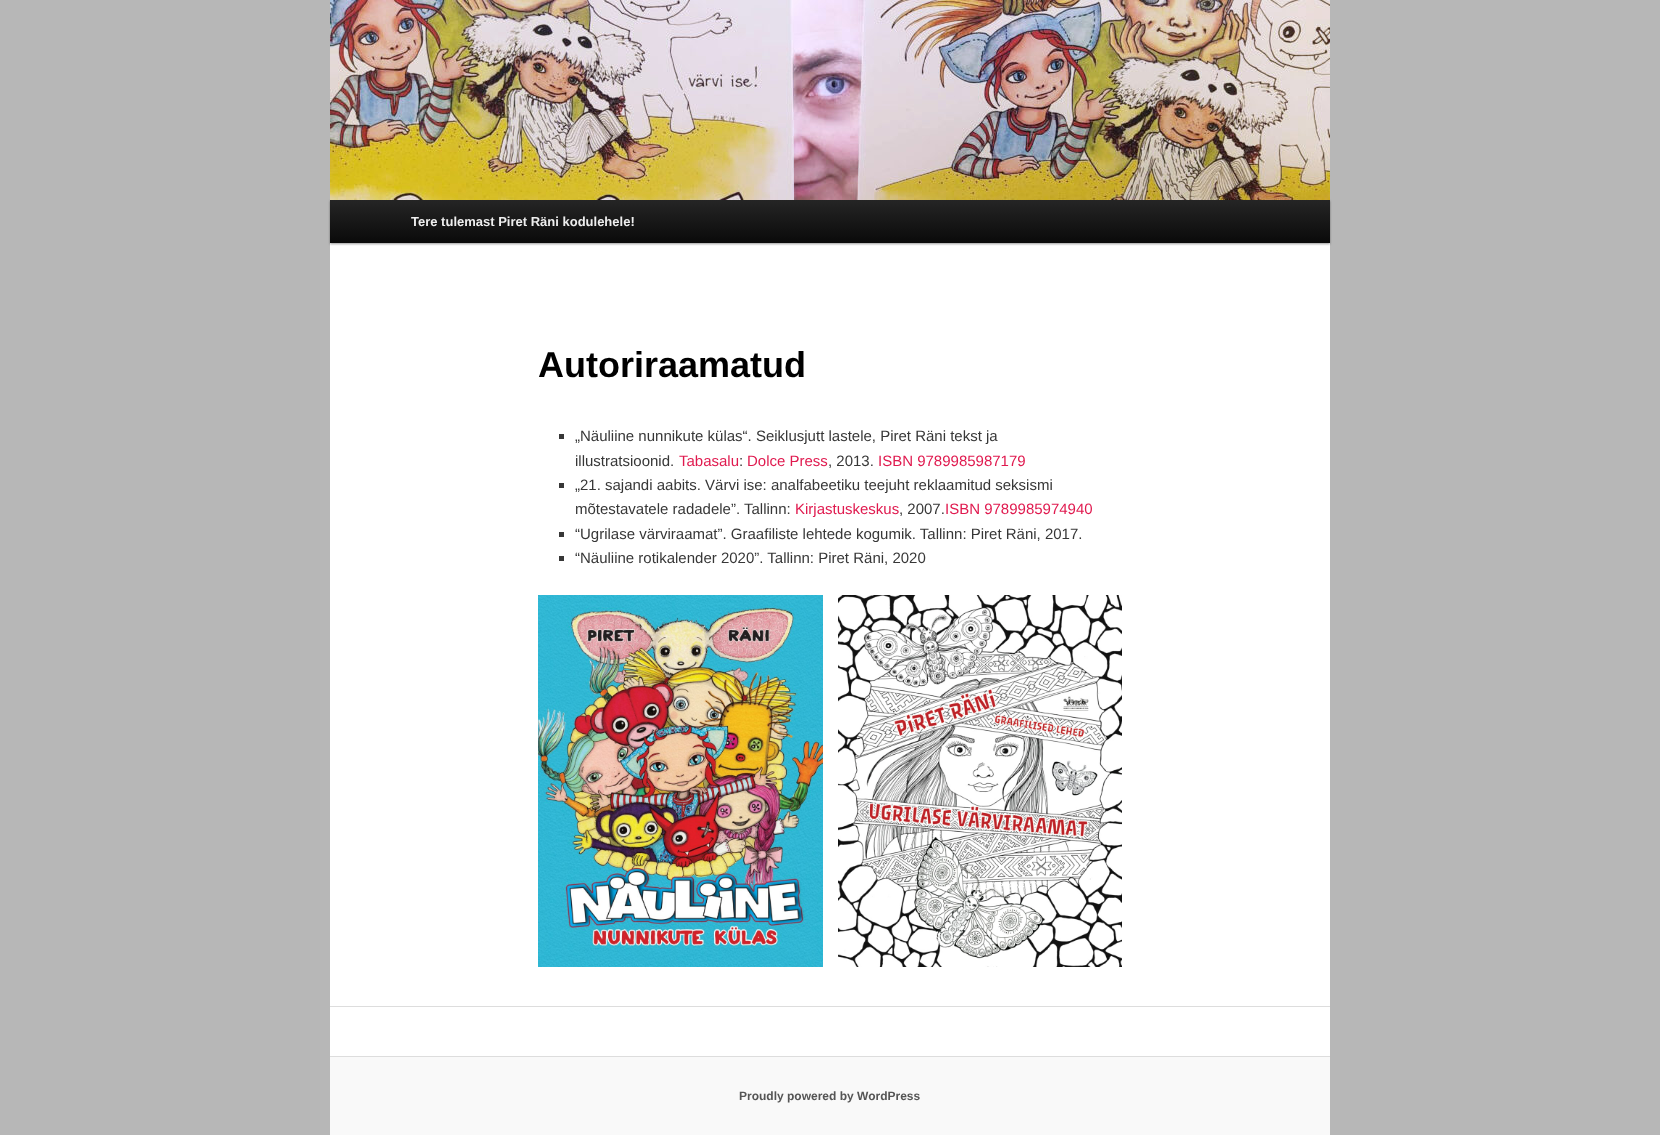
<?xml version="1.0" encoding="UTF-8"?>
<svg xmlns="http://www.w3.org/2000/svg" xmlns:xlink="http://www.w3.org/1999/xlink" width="1660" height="1135">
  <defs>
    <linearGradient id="g1" gradientUnits="userSpaceOnUse" x1="830" y1="200" x2="830" y2="243"><stop offset="0" stop-color="#252525" /><stop offset="1" stop-color="#0a0a0a" /></linearGradient>
  </defs>
  <rect width="100%" height="100%" fill="#b7b7b7" />
  <rect x="330" y="243" width="1000" height="813" fill="#ffffff" />
  <rect x="330" y="201" width="1000" height="43" fill="#000000" fill-opacity="0.4" filter="blur(1px)" />
  <image x="330" y="0" width="1000" height="200" xlink:href="image1.png" />
  <rect x="330" y="200" width="1000" height="43" fill="url(#g1)" />
  <rect x="559" y="434" width="5" height="5" fill="#373737" />
  <rect x="559" y="483" width="5" height="5" fill="#373737" />
  <rect x="559" y="532" width="5" height="5" fill="#373737" />
  <rect x="559" y="556" width="5" height="5" fill="#373737" />
  <image x="538" y="595" width="285" height="372" xlink:href="image2.png" />
  <image x="838" y="595" width="284" height="372" xlink:href="image3.png" />
  <rect x="330" y="1006" width="1000" height="1" fill="#dddddd" />
  <rect x="330" y="1057" width="1000" height="78" fill="#f9f9f9" />
  <rect x="330" y="1056" width="1000" height="1" fill="#dddddd" />
  <text x="411" y="226" style="font-family: Liberation Sans; font-size: 13px; font-weight: bold; fill: #eeeeee">Tere tulemast Piret Räni kodulehele!</text>
  <text x="538" y="377" style="font-family: Liberation Sans; font-size: 36px; font-weight: bold; fill: #000000">Autoriraamatud</text>
  <text x="575" y="441" style="font-family: Liberation Sans; font-size: 15px; fill: #373737">„Näuliine nunnikute külas“. Seiklusjutt lastele, Piret Räni tekst ja</text>
  <text x="575" y="466" style="font-family: Liberation Sans; font-size: 15px; fill: #373737">illustratsioonid.</text>
  <text x="679" y="466" style="font-family: Liberation Sans; font-size: 15px; fill: #e01a4f">Tabasalu</text>
  <text x="739" y="466" style="font-family: Liberation Sans; font-size: 15px; fill: #373737">:</text>
  <text x="747" y="466" style="font-family: Liberation Sans; font-size: 15px; fill: #e01a4f">Dolce Press</text>
  <text x="828" y="466" style="font-family: Liberation Sans; font-size: 15px; fill: #373737">, 2013.</text>
  <text x="878" y="466" style="font-family: Liberation Sans; font-size: 15px; fill: #e01a4f">ISBN 9789985987179</text>
  <text x="575" y="490" style="font-family: Liberation Sans; font-size: 15px; fill: #373737">„21. sajandi aabits. Värvi ise: analfabeetiku teejuht reklaamitud seksismi</text>
  <text x="575" y="514" style="font-family: Liberation Sans; font-size: 15px; fill: #373737">mõtestavatele radadele”. Tallinn:</text>
  <text x="795" y="514" style="font-family: Liberation Sans; font-size: 15px; fill: #e01a4f">Kirjastuskeskus</text>
  <text x="899" y="514" style="font-family: Liberation Sans; font-size: 15px; fill: #373737">, 2007.</text>
  <text x="945" y="514" style="font-family: Liberation Sans; font-size: 15px; fill: #e01a4f">ISBN 9789985974940</text>
  <text x="575" y="539" style="font-family: Liberation Sans; font-size: 15px; fill: #373737">“Ugrilase värviraamat”. Graafiliste lehtede kogumik. Tallinn: Piret Räni, 2017.</text>
  <text x="575" y="563" style="font-family: Liberation Sans; font-size: 15px; fill: #373737">“Näuliine rotikalender 2020”. Tallinn: Piret Räni, 2020</text>
  <text x="739" y="1100" style="font-family: Liberation Sans; font-size: 12px; font-weight: bold; fill: #555555">Proudly powered by WordPress</text>
</svg>
